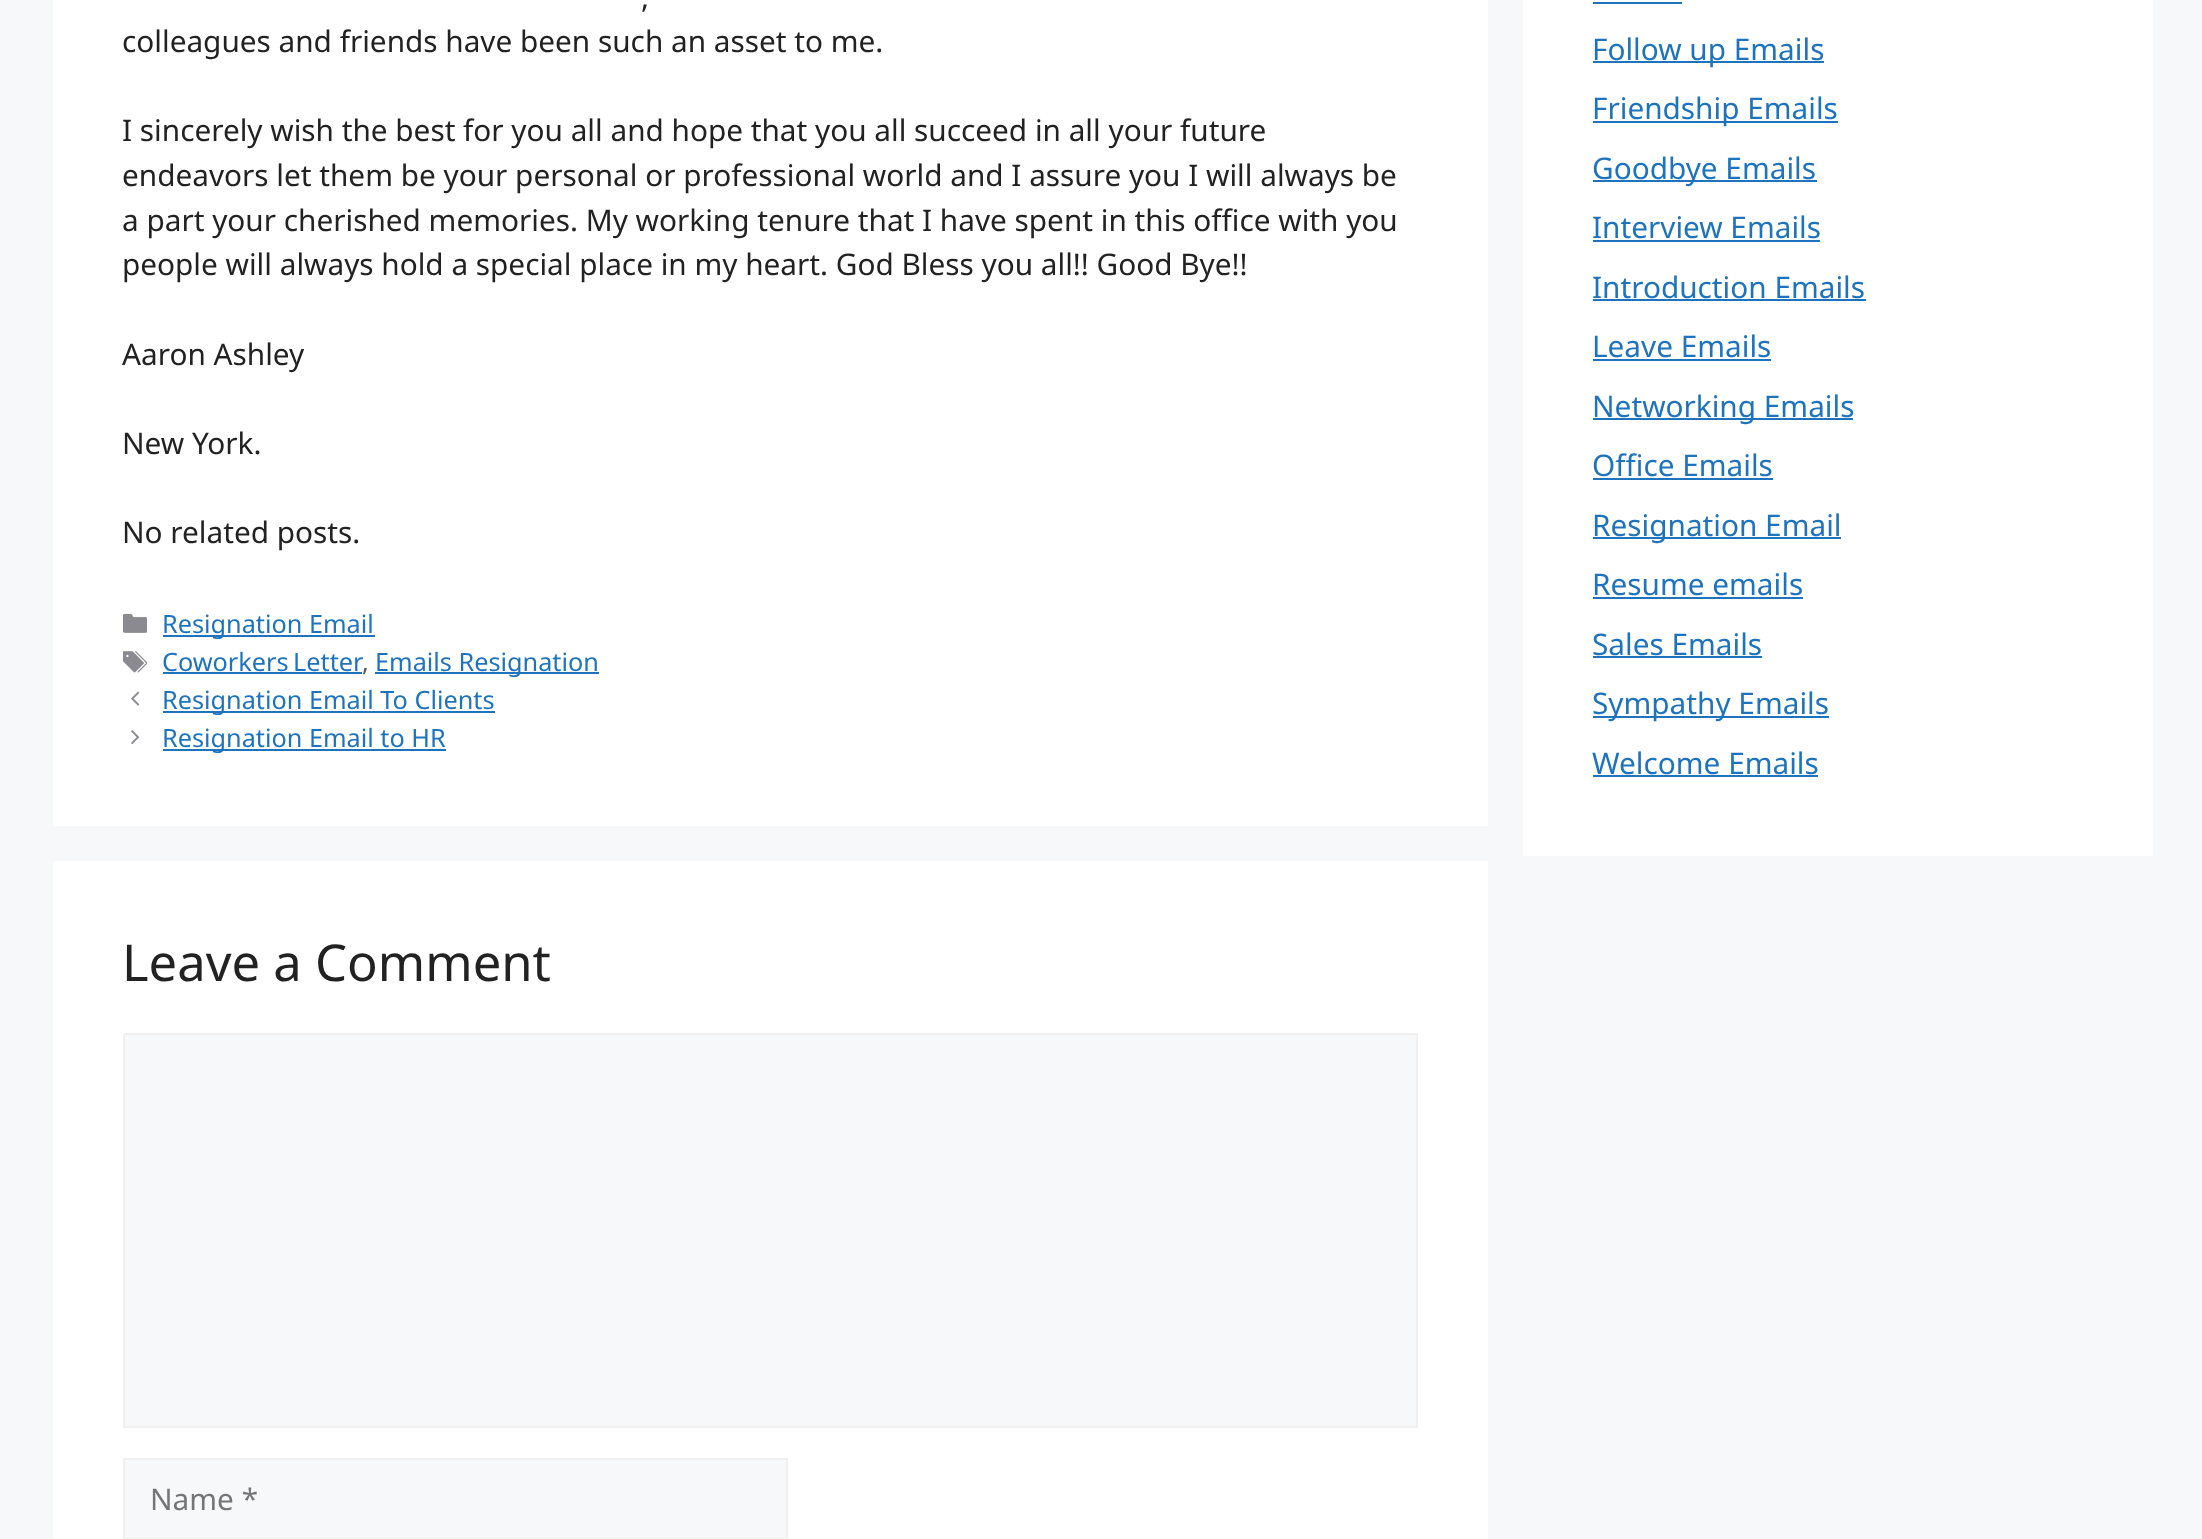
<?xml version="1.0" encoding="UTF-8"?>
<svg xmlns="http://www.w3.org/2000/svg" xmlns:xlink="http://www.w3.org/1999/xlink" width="2202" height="1539">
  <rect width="100%" height="100%" fill="#f7f8f9" />
  <rect x="53" width="1435" height="826" fill="#ffffff" />
  <image x="123" y="613" width="24" height="20" xlink:href="image1.png" />
  <rect x="163" y="635" width="212" height="2" fill="#1e73be" />
  <image x="123" y="651" width="24" height="22" xlink:href="image2.png" />
  <rect x="163" y="672" width="199" height="2" fill="#1e73be" />
  <rect x="375" y="672" width="224" height="2" fill="#1e73be" />
  <image x="131" y="691" width="9" height="15" xlink:href="image3.png" />
  <rect x="163" y="711" width="332" height="2" fill="#1e73be" />
  <image x="131" y="730" width="9" height="14" xlink:href="image4.png" />
  <rect x="163" y="749" width="283" height="2" fill="#1e73be" />
  <rect x="53" y="861" width="1435" height="678" fill="#ffffff" />
  <rect x="124" y="1034" width="1293" height="393" fill="#f7f8f9" stroke="#f0f0f0" stroke-width="2" />
  <rect x="124" y="1459" width="663" height="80" fill="#f7f8f9" stroke="#f0f0f0" stroke-width="2" />
  <rect x="1523" width="630" height="856" fill="#ffffff" />
  <rect x="1593" y="2" width="89" height="2" fill="#1e73be" />
  <rect x="1593" y="61" width="231" height="2" fill="#1e73be" />
  <rect x="1593" y="121" width="245" height="2" fill="#1e73be" />
  <rect x="1593" y="180" width="224" height="2" fill="#1e73be" />
  <rect x="1593" y="240" width="227" height="2" fill="#1e73be" />
  <rect x="1593" y="299" width="273" height="2" fill="#1e73be" />
  <rect x="1593" y="359" width="178" height="2" fill="#1e73be" />
  <rect x="1593" y="418" width="260" height="2" fill="#1e73be" />
  <rect x="1593" y="478" width="180" height="2" fill="#1e73be" />
  <rect x="1593" y="537" width="248" height="2" fill="#1e73be" />
  <rect x="1593" y="597" width="210" height="2" fill="#1e73be" />
  <rect x="1593" y="656" width="169" height="2" fill="#1e73be" />
  <rect x="1593" y="716" width="236" height="2" fill="#1e73be" />
  <rect x="1593" y="775" width="225" height="2" fill="#1e73be" />
  <text x="641" y="8" style="font-family: Noto Sans; font-size: 29.75px; fill: #222222">,</text>
  <text x="122" y="52" style="font-family: Noto Sans; font-size: 29.75px; fill: #222222">colleagues and friends have been such an asset to me.</text>
  <text x="122" y="141" style="font-family: Noto Sans; font-size: 29.75px; fill: #222222">I sincerely wish the best for you all and hope that you all succeed in all your future</text>
  <text x="122" y="186" style="font-family: Noto Sans; font-size: 29.75px; fill: #222222">endeavors let them be your personal or professional world and I assure you I will always be</text>
  <text x="122" y="231" style="font-family: Noto Sans; font-size: 29.75px; fill: #222222">a part your cherished memories. My working tenure that I have spent in this office with you</text>
  <text x="122" y="275" style="font-family: Noto Sans; font-size: 29.75px; fill: #222222">people will always hold a special place in my heart. God Bless you all!! Good Bye!!</text>
  <text x="122" y="365" style="font-family: Noto Sans; font-size: 29.75px; fill: #222222">Aaron Ashley</text>
  <text x="122" y="454" style="font-family: Noto Sans; font-size: 29.75px; fill: #222222">New York.</text>
  <text x="122" y="543" style="font-family: Noto Sans; font-size: 29.75px; fill: #222222">No related posts.</text>
  <text x="162" y="633" style="font-family: Noto Sans; font-size: 25.25px; fill: #1e73be">Resignation Email</text>
  <text x="162" y="671" word-spacing="-2" style="font-family: Noto Sans; font-size: 25.25px; fill: #1e73be">Coworkers Letter</text>
  <text x="362" y="671" style="font-family: Noto Sans; font-size: 25.25px; fill: #575760">,</text>
  <text x="375" y="671" style="font-family: Noto Sans; font-size: 25.25px; fill: #1e73be">Emails Resignation</text>
  <text x="162" y="709" style="font-family: Noto Sans; font-size: 25.25px; fill: #1e73be">Resignation Email To Clients</text>
  <text x="162" y="747" style="font-family: Noto Sans; font-size: 25.25px; fill: #1e73be">Resignation Email to HR</text>
  <text x="122" y="981" style="font-family: Noto Sans; font-size: 50.75px; fill: #222222">Leave a Comment</text>
  <text x="150" y="1510" style="font-family: Noto Sans; font-size: 29.75px; fill: #757575">Name *</text>
  <text x="1592" y="60" style="font-family: Noto Sans; font-size: 29.75px; fill: #1e73be">Follow up Emails</text>
  <text x="1592" y="119" style="font-family: Noto Sans; font-size: 29.75px; fill: #1e73be">Friendship Emails</text>
  <text x="1592" y="179" style="font-family: Noto Sans; font-size: 29.75px; fill: #1e73be">Goodbye Emails</text>
  <text x="1592" y="238" style="font-family: Noto Sans; font-size: 29.75px; fill: #1e73be">Interview Emails</text>
  <text x="1592" y="298" style="font-family: Noto Sans; font-size: 29.75px; fill: #1e73be">Introduction Emails</text>
  <text x="1592" y="357" style="font-family: Noto Sans; font-size: 29.75px; fill: #1e73be">Leave Emails</text>
  <text x="1592" y="417" style="font-family: Noto Sans; font-size: 29.75px; fill: #1e73be">Networking Emails</text>
  <text x="1592" y="476" style="font-family: Noto Sans; font-size: 29.75px; fill: #1e73be">Office Emails</text>
  <text x="1592" y="536" style="font-family: Noto Sans; font-size: 29.75px; fill: #1e73be">Resignation Email</text>
  <text x="1592" y="595" style="font-family: Noto Sans; font-size: 29.75px; fill: #1e73be">Resume emails</text>
  <text x="1592" y="655" style="font-family: Noto Sans; font-size: 29.75px; fill: #1e73be">Sales Emails</text>
  <text x="1592" y="714" style="font-family: Noto Sans; font-size: 29.75px; fill: #1e73be">Sympathy Emails</text>
  <text x="1592" y="774" style="font-family: Noto Sans; font-size: 29.75px; fill: #1e73be">Welcome Emails</text>
</svg>
